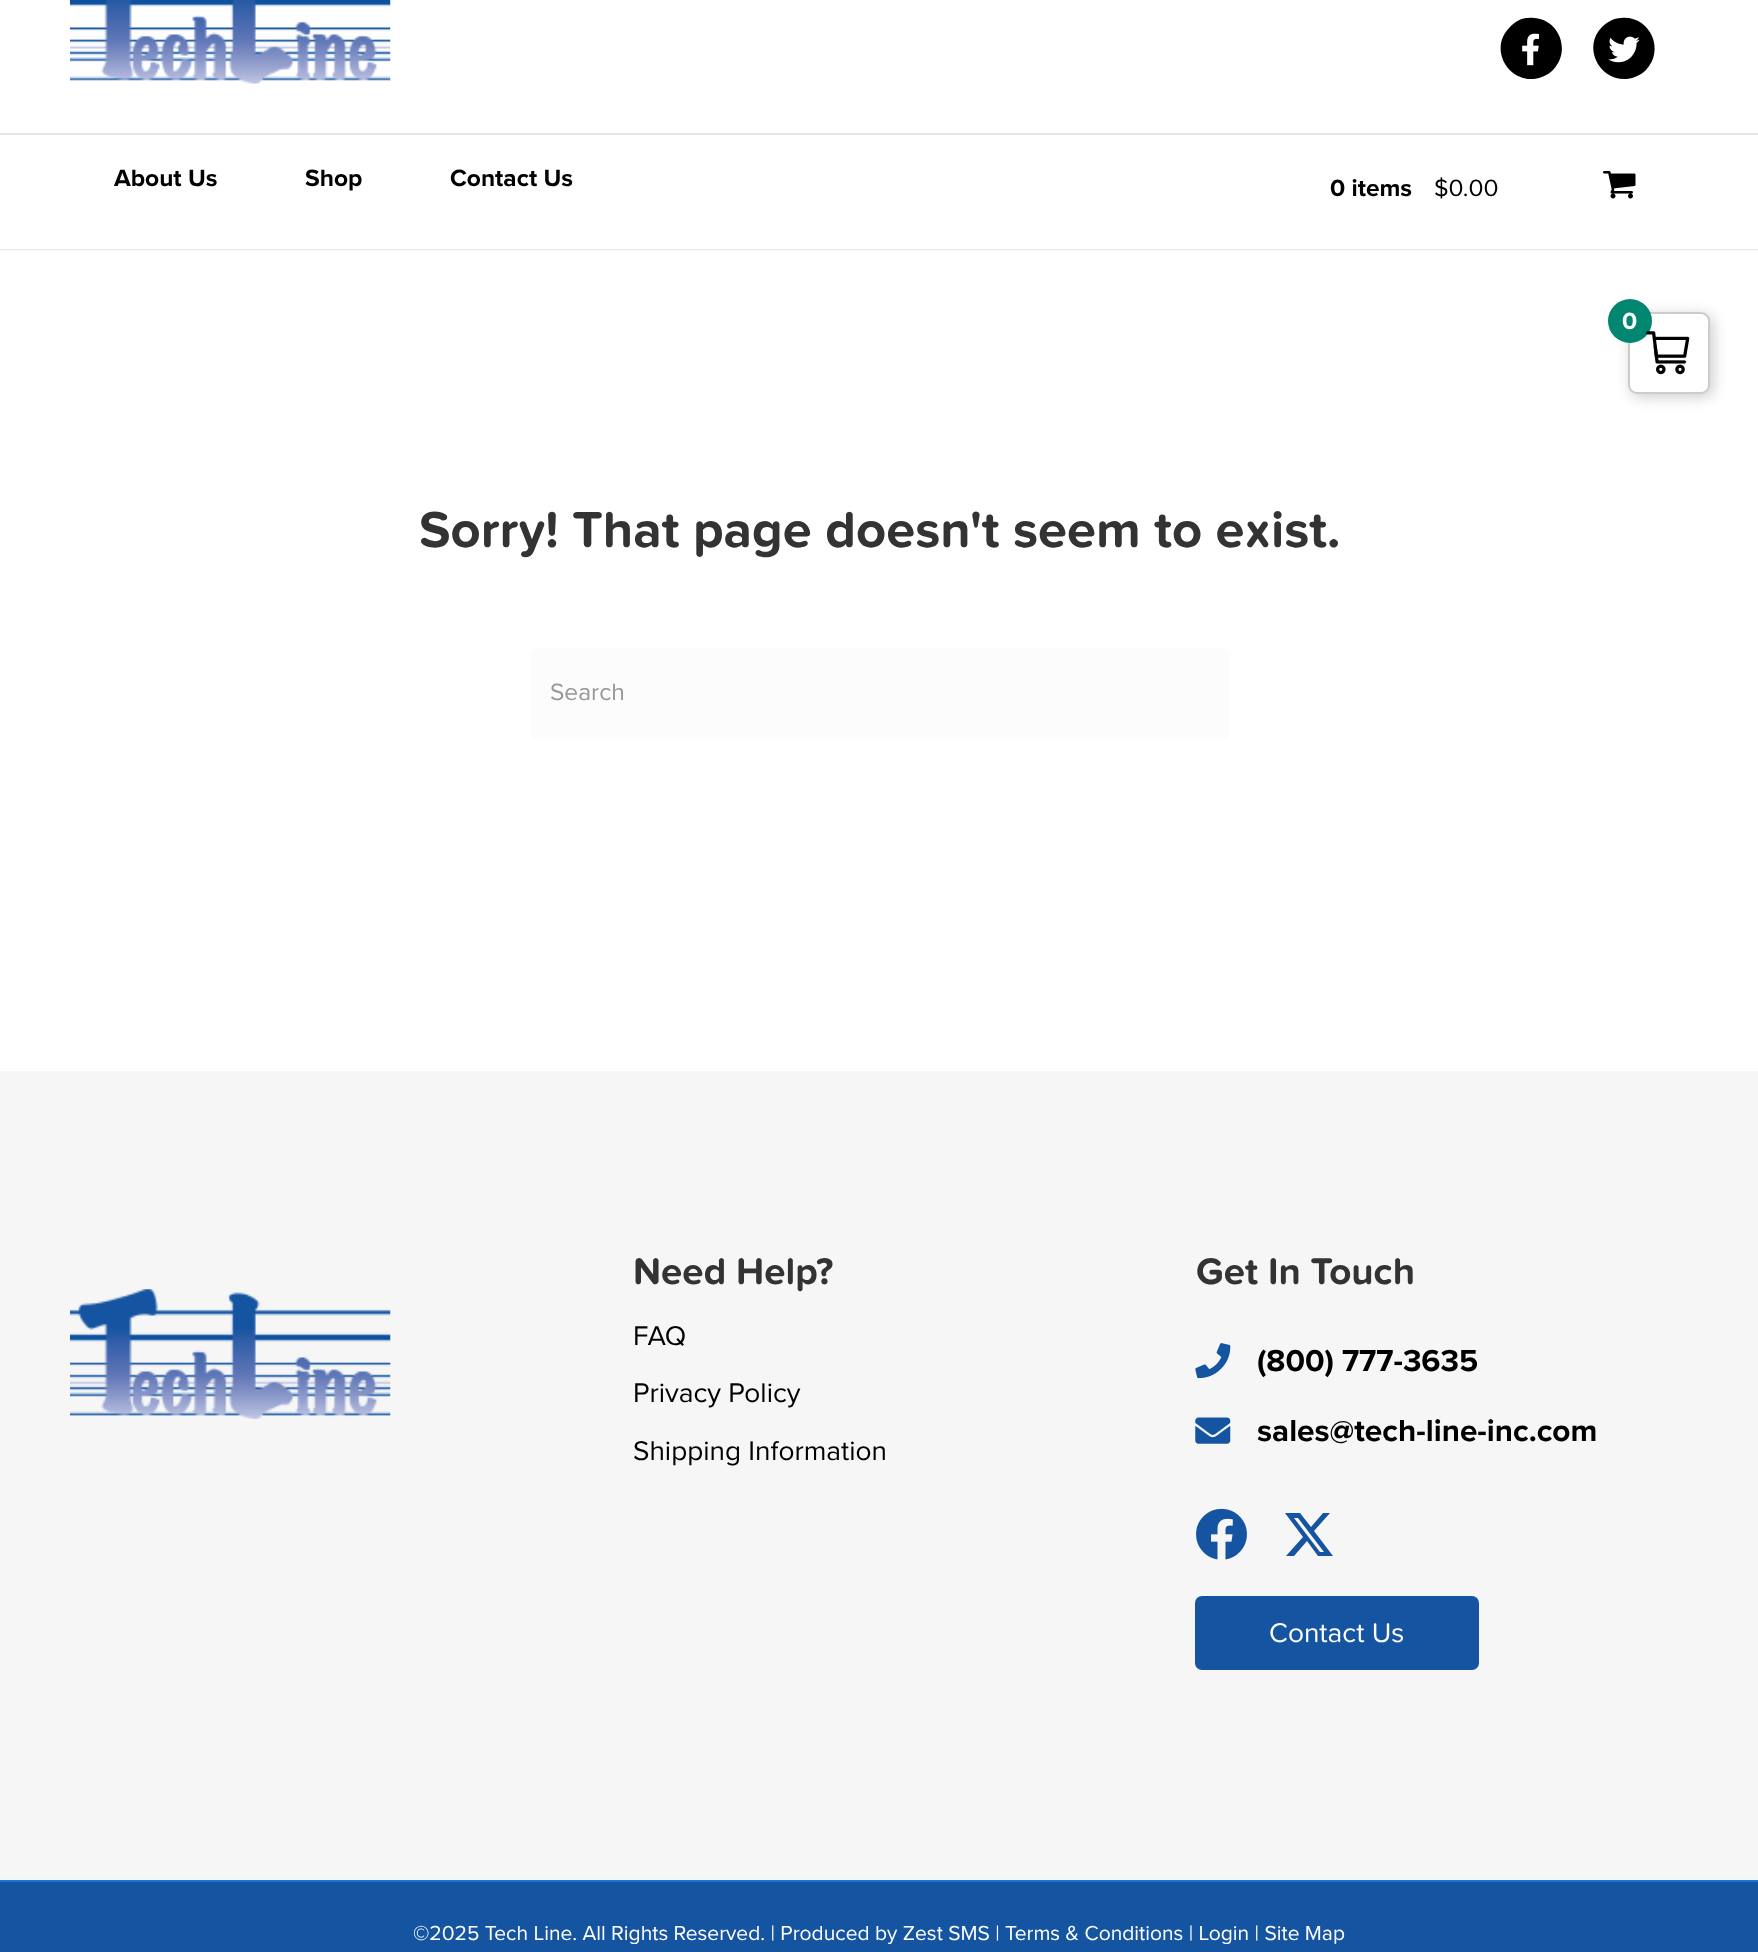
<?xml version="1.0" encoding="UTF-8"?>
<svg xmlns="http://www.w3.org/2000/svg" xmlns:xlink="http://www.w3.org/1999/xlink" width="1758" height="1952">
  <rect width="100%" height="100%" fill="#ffffff" />
  <image x="70" y="0" width="321" height="84" xlink:href="image1.png" />
  <path d="M 1510 27 c 5 -5 11 -9 18 -9 c 29 -3 45 31 25 52 c -5 5 -12 8 -19 9 c -28 2 -45 -32 -24 -52 z" fill="#000000" />
  <image x="1522" y="33" width="18" height="33" xlink:href="image2.png" />
  <path d="M 1602 27 c 5 -5 12 -9 19 -9 c 28 -3 45 31 25 52 c -5 5 -12 8 -19 9 c -28 2 -45 -32 -25 -52 z" fill="#000000" />
  <image x="1608" y="36" width="32" height="27" xlink:href="image3.png" />
  <rect y="133" width="1758" height="2" fill="#e6e6e6" />
  <rect y="249" width="1758" height="1" fill="#e6e6e6" />
  <image x="1603" y="171" width="33" height="28" xlink:href="image4.png" />
  <rect x="530" y="648" width="700" height="91" rx="7" fill="#fcfcfc" />
  <rect y="1071" width="1758" height="809" fill="#f6f6f6" />
  <image x="70" y="1289" width="321" height="130" xlink:href="image5.png" />
  <image x="1195" y="1343" width="36" height="36" xlink:href="image6.png" />
  <image x="1195" y="1417" width="36" height="27" xlink:href="image7.png" />
  <image x="1196" y="1508" width="51" height="52" xlink:href="image8.png" />
  <path d="M 1323 1513 h 7 l -16 18 l 19 25 h -15 l -11 -15 l -13 15 h -8 l 17 -19 l -18 -24 h 15 l 11 14 z m -3 39 h 4 l -26 -34 h -4 z" fill="#1554a1" />
  <rect x="1195" y="1596" width="284" height="74" rx="7" fill="#1554a1" />
  <rect y="1882" width="1758" height="70" fill="#1554a1" />
  <rect y="1880" width="1758" height="2" fill="#1d73dc" />
  <rect x="1631" y="315" width="82" height="82" rx="9" fill="#cccccc" filter="blur(7px)" />
  <rect x="1629" y="313" width="80" height="80" rx="8" fill="#ffffff" stroke="#cccccc" stroke-width="2" />
  <circle cx="1630" cy="321" r="22" fill="#008671" />
  <image x="1646" y="331" width="44" height="44" xlink:href="image9.png" />
  <text x="114" y="186" style="font-family: Proxima Nova; font-size: 24.5px; font-weight: bold; fill: #000000">About Us</text>
  <text x="305" y="186" style="font-family: Proxima Nova; font-size: 24.5px; font-weight: bold; fill: #000000">Shop</text>
  <text x="450" y="186" style="font-family: Proxima Nova; font-size: 24.5px; font-weight: bold; fill: #000000">Contact Us</text>
  <text x="1330" y="196" style="font-family: Proxima Nova; font-size: 24.5px; font-weight: bold; fill: #000000">0 items</text>
  <text x="1434" y="196" style="font-family: Proxima Nova; font-size: 24.5px; fill: #000000">$0.00</text>
  <text x="419" y="547" style="font-family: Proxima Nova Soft; font-size: 52.5px; font-weight: bold; fill: #333333">Sorry! That page doesn't seem to exist.</text>
  <text x="550" y="700" style="font-family: Proxima Nova; font-size: 24.5px; fill: #979797">Search</text>
  <text x="633" y="1284" style="font-family: Proxima Nova Soft; font-size: 38.5px; font-weight: bold; fill: #333333">Need Help?</text>
  <text x="633" y="1345" style="font-family: Proxima Nova; font-size: 28px; fill: #000000">FAQ</text>
  <text x="633" y="1402" style="font-family: Proxima Nova; font-size: 28px; fill: #000000">Privacy Policy</text>
  <text x="633" y="1460" style="font-family: Proxima Nova; font-size: 28px; fill: #000000">Shipping Information</text>
  <text x="1196" y="1284" style="font-family: Proxima Nova Soft; font-size: 38.5px; font-weight: bold; fill: #333333">Get In Touch</text>
  <text x="1257" y="1371" style="font-family: Proxima Nova; font-size: 31.5px; font-weight: bold; fill: #000000">(800) 777-3635</text>
  <text x="1257" y="1441" style="font-family: Proxima Nova; font-size: 31.5px; font-weight: bold; fill: #000000">sales@tech-line-inc.com</text>
  <text x="1269" y="1642" style="font-family: Proxima Nova Soft; font-size: 28px; fill: #ffffff">Contact Us</text>
  <text x="413" y="1940" style="font-family: Proxima Nova; font-size: 21px; fill: #ffffff">©2025 Tech Line. All Rights Reserved. | Produced by Zest SMS | Terms &amp; Conditions | Login | Site Map</text>
  <text x="1622" y="329" style="font-family: Proxima Nova; font-size: 24.5px; font-weight: bold; fill: #ffffff">0</text>
</svg>
